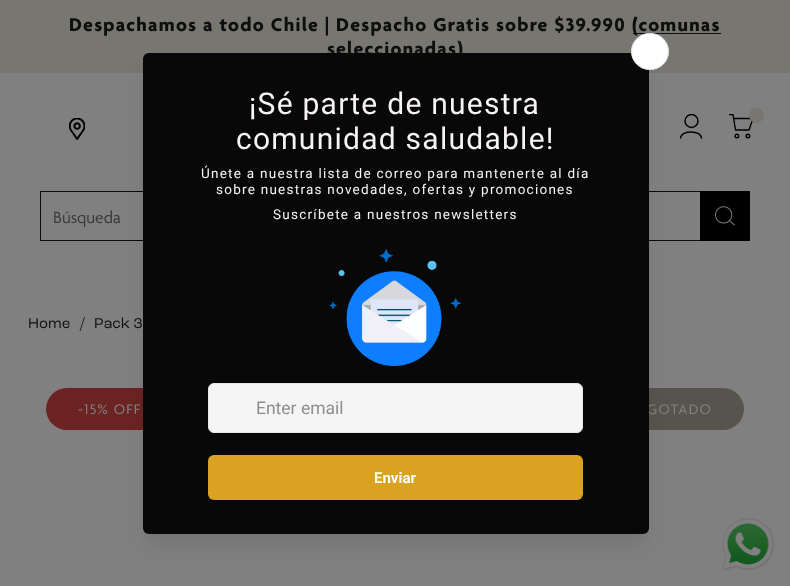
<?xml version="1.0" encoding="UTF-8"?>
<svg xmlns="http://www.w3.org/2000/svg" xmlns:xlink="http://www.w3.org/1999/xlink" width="790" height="586">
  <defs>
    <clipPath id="clip1"><rect x="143" y="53" width="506" height="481" /></clipPath>
    <clipPath id="clip2"><rect x="680" y="114" width="23" height="25" /></clipPath>
    <clipPath id="clip3"><rect x="729" y="114" width="25" height="25" /></clipPath>
  </defs>
  <rect width="100%" height="100%" fill="#808080" />
  <rect width="790" height="73" fill="#787671" />
  <rect x="633" y="33" width="88" height="1" fill="#0e0e0e" />
  <rect x="40.5" y="191.5" width="709" height="49" fill="none" stroke="#0e0e0e" />
  <rect x="700" y="191" width="50" height="50" fill="#000000" />
  <image x="715" y="206" width="20" height="20" xlink:href="image1.png" />
  <rect x="46" y="388" width="127" height="42" rx="21" fill="#6b2323" />
  <rect x="606" y="388" width="138" height="42" rx="21" fill="#57544d" />
  <rect x="146" y="69" width="499" height="474" rx="2.5" fill="#000000" fill-opacity="0.1" filter="blur(9.5px)" />
  <path d="M 680.5 138 c 1 -8.5 21 -7.5 21 0" fill="none" stroke="#000000" stroke-width="1.4" stroke-linecap="round" />
  <g clip-path="url(#clip1)">
    <rect x="146" y="56" width="499" height="474" rx="2.5" fill="#000000" fill-opacity="0.12" filter="blur(12.5px)" />
  </g>
  <image x="69" y="118" width="16" height="22" xlink:href="image3.png" />
  <g clip-path="url(#clip2)">
    <circle cx="691.5" cy="121" r="6.5" fill="none" stroke="#000000" stroke-width="1.4" />
  </g>
  <circle cx="736.9" cy="136.1" r="1.8" fill="none" stroke="#000000" stroke-width="1.4" />
  <circle cx="747.9" cy="136.1" r="1.8" fill="none" stroke="#000000" stroke-width="1.4" />
  <g clip-path="url(#clip3)">
    <path d="M 729.5 114.5 h 3.5 l 2.5 15.5 h 13.5 l 4 -11.5 h -19" fill="none" stroke="#000000" stroke-width="1.4" stroke-linecap="round" stroke-linejoin="round" />
  </g>
  <circle cx="756.5" cy="115.5" r="7.5" fill="#787671" />
  <image x="722" y="518" width="53" height="53" xlink:href="image4.png" />
  <text x="69" y="31" style="font-family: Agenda; font-size: 20px; font-weight: bold; letter-spacing: 1.25px; fill: #0e0e0e">Despachamos a todo Chile | Despacho Gratis sobre $39.990</text>
  <text x="632" y="31" style="font-family: Agenda; font-size: 20px; font-weight: bold; letter-spacing: 1.25px; fill: #0e0e0e">(comunas</text>
  <text x="327" y="55" style="font-family: Agenda; font-size: 20px; font-weight: bold; letter-spacing: 1.25px; fill: #0e0e0e">seleccionadas)</text>
  <text x="53" y="223" style="font-family: Agenda; font-size: 17.5px; fill: #3b3b3b">Búsqueda</text>
  <text x="28" y="328" style="font-family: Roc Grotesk; font-size: 15px; fill: #0e0e0e">Home</text>
  <text x="80" y="328" style="font-family: Roc Grotesk; font-size: 15px; fill: #0e0e0e">/</text>
  <text x="94" y="328" style="font-family: Roc Grotesk; font-size: 15px; fill: #0e0e0e">Pack 3</text>
  <text x="78" y="414" style="font-family: Agenda; font-size: 15px; letter-spacing: 1.25px; fill: #808080">-15% OFF</text>
  <text x="647" y="414" style="font-family: Agenda; font-size: 15px; letter-spacing: 1.25px; fill: #808080">GOTADO</text>
  <rect x="143" y="53" width="506" height="481" rx="6" fill="#080808" />
  <rect x="631.5" y="33.5" width="37" height="36" rx="18" fill="#ffffff" stroke="#e2e8f0" />
  <rect x="208.5" y="383.5" width="374" height="49" rx="5.5" fill="#f5f5f5" stroke="#e2e8f0" />
  <text x="256" y="414" style="font-family: Roboto; font-size: 17.5px; fill: #8e8e8e">Enter email</text>
  <rect x="208" y="455" width="375" height="45" rx="6" fill="#daa221" />
  <text x="374" y="483" style="font-family: Roboto; font-size: 15px; font-weight: bold; fill: #ffffff">Enviar</text>
  <image x="329" y="249" width="133" height="118" xlink:href="image2.png" />
  <text x="273" y="219" style="font-family: Roboto; font-size: 13.5px; letter-spacing: 1.25px; fill: #f9f4f4">Suscríbete a nuestros newsletters</text>
  <text x="216" y="194" style="font-family: Roboto; font-size: 13.5px; letter-spacing: 1.25px; fill: #f9f4f4">sobre nuestras novedades, ofertas y promociones</text>
  <text x="201" y="178" style="font-family: Roboto; font-size: 13.5px; letter-spacing: 1.25px; fill: #f9f4f4">Únete a nuestra lista de correo para mantenerte al día</text>
  <text x="236" y="149" style="font-family: Roboto; font-size: 30px; letter-spacing: 1.25px; fill: #f9f4f4">comunidad saludable!</text>
  <text x="249" y="114" style="font-family: Roboto; font-size: 30px; letter-spacing: 1.25px; fill: #f9f4f4">¡Sé parte de nuestra</text>
</svg>
